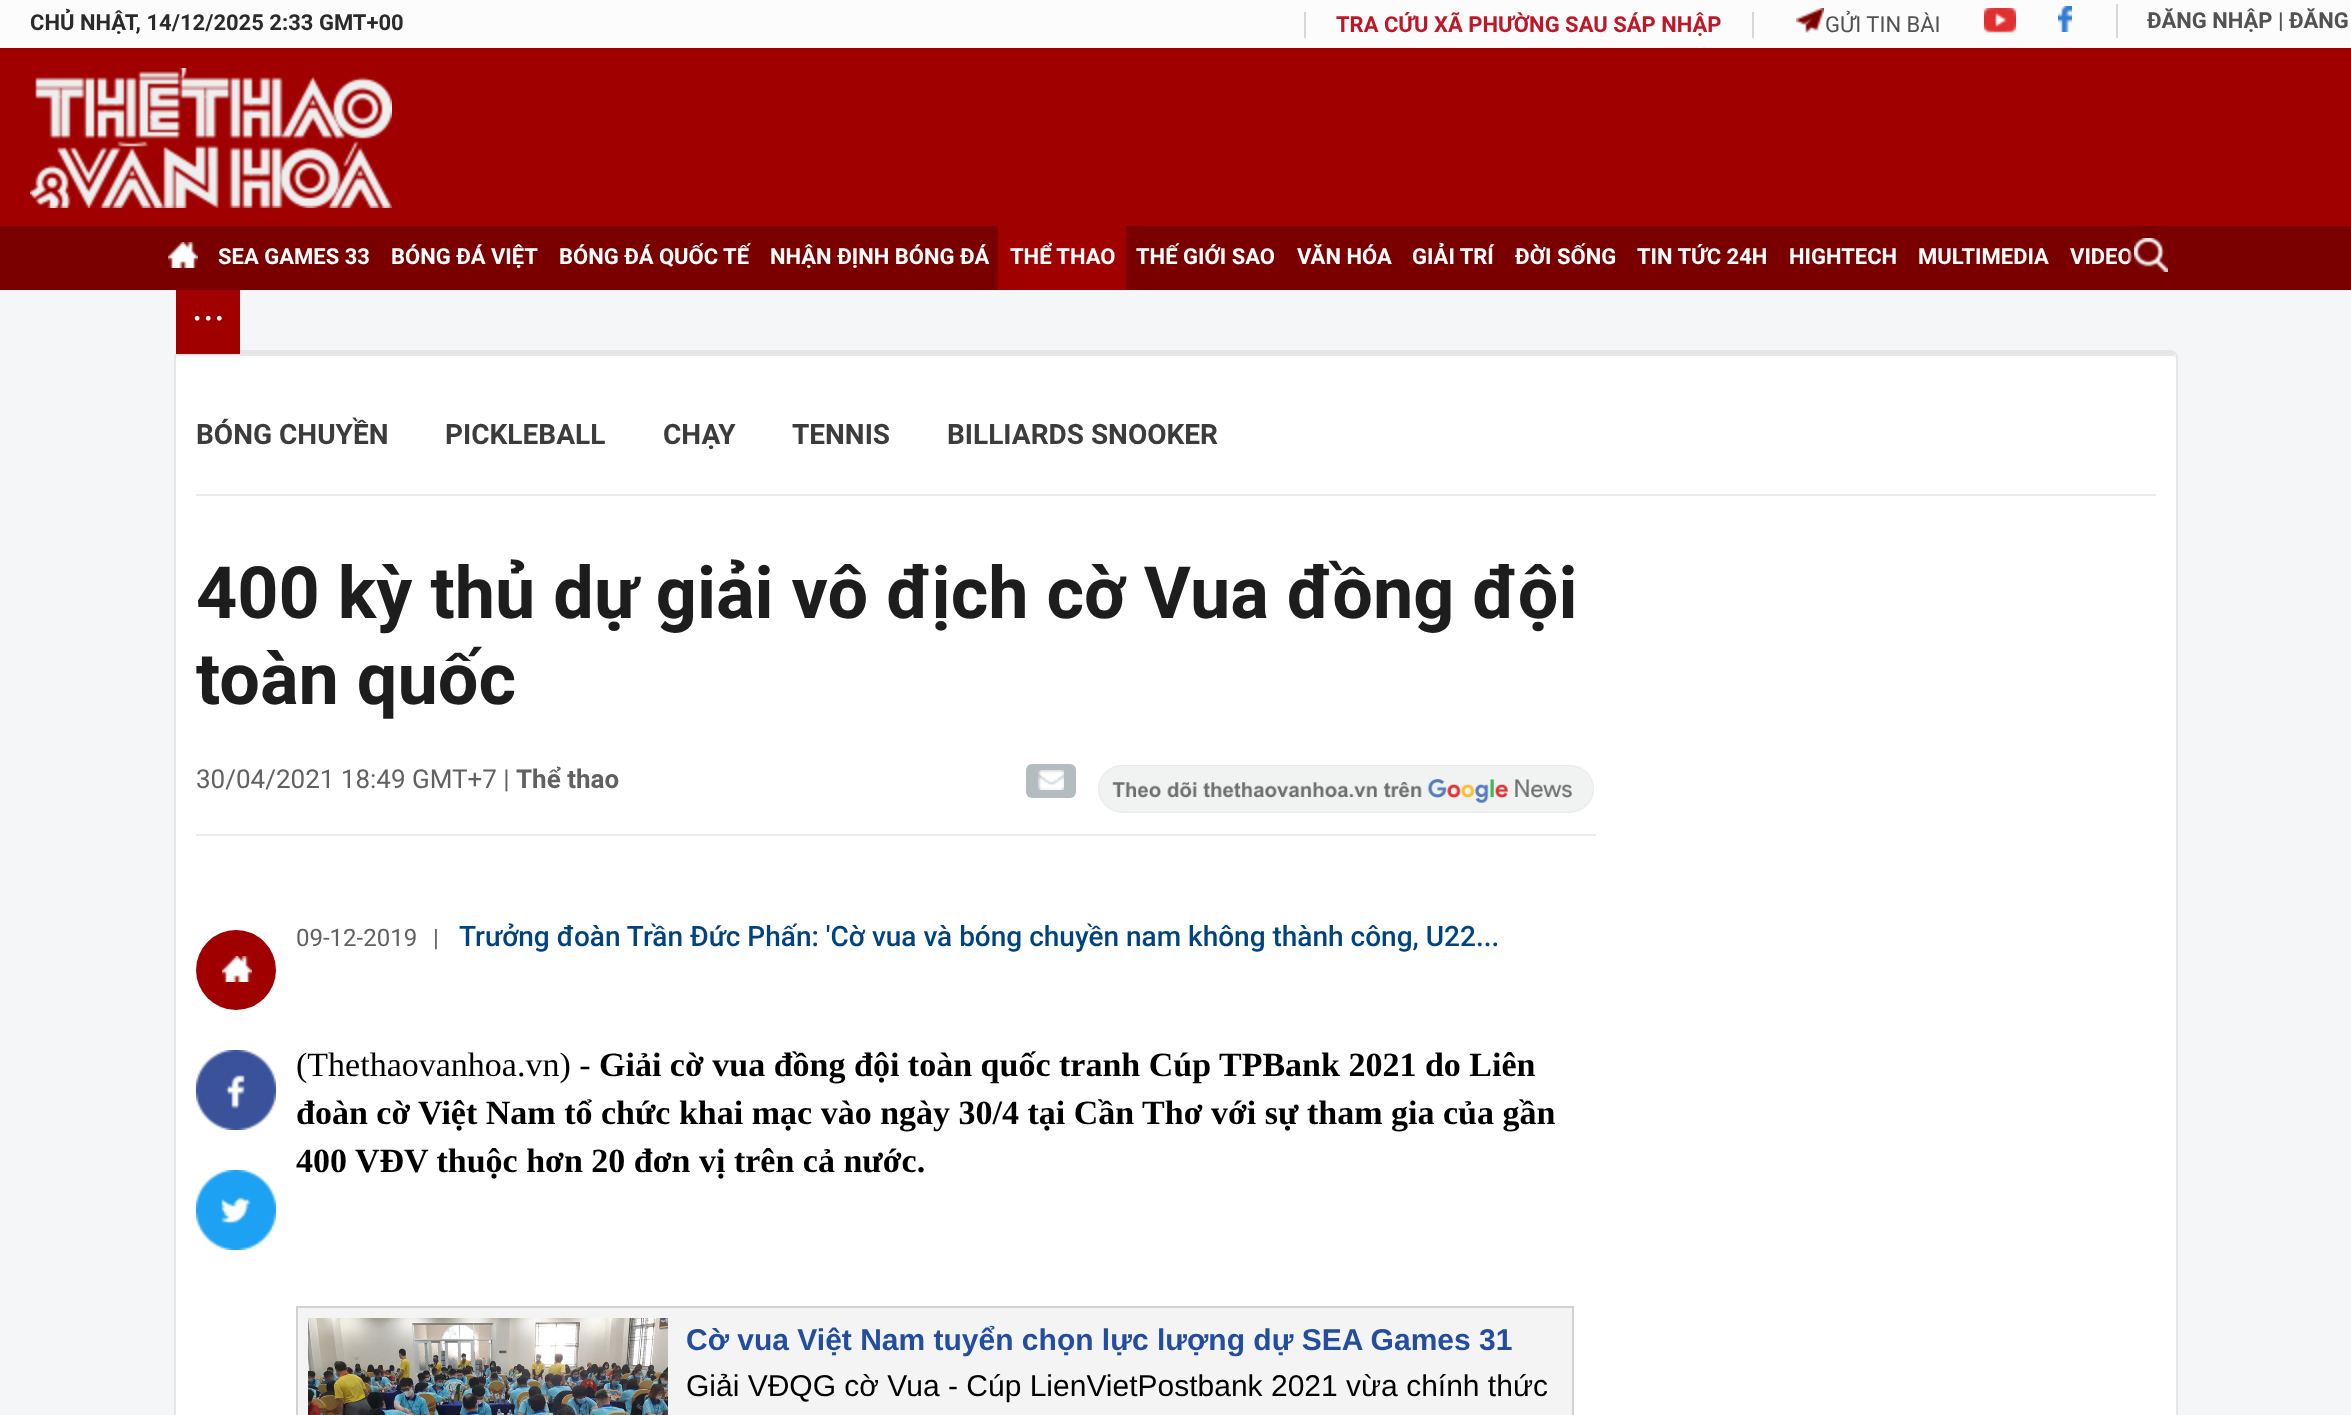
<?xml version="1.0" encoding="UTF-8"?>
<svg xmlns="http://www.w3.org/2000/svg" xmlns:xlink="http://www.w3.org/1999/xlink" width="2351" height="1415">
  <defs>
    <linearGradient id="g1" gradientUnits="userSpaceOnUse" x1="2128" y1="258" x2="2178" y2="258"><stop offset="0" stop-color="#7a0000" stop-opacity="0" /><stop offset="0.1" stop-color="#7a0000" /></linearGradient>
  </defs>
  <rect width="100%" height="100%" fill="#f5f6f8" />
  <rect width="2351" height="48" fill="#fcfcfc" />
  <rect x="1752" y="12" width="2" height="26" fill="#d8d8d8" />
  <rect x="1304" y="12" width="2" height="26" fill="#d8d8d8" />
  <image x="1796" y="8" width="28" height="25" xlink:href="image1.png" />
  <image x="1984" y="8" width="32" height="25" xlink:href="image2.png" />
  <image x="2058" y="6" width="14" height="26" xlink:href="image3.png" />
  <rect x="2116" y="4" width="2" height="34" fill="#d8d8d8" />
  <rect y="48" width="2351" height="178" fill="#a10000" />
  <image x="30" y="68" width="362" height="140" xlink:href="image4.png" />
  <rect y="226" width="2351" height="64" fill="#7a0000" />
  <image x="168" y="242" width="30" height="26" xlink:href="image5.png" />
  <rect x="998" y="226" width="128" height="64" fill="#a10000" />
  <image x="2134" y="238" width="34" height="34" xlink:href="image6.png" />
  <path d="M 182 356 h 1988 c 3 0 6 1 6 2 v 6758 c 0 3 -3 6 -6 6 h -1988 c -3 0 -6 -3 -6 -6 v -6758 c 0 -1 3 -2 6 -2 z" fill="#ffffff" />
  <rect x="175" y="351" width="2002" height="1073" rx="7" fill="none" stroke="#e6e6e6" stroke-width="2" />
  <rect x="178" y="352" width="1996" height="4" fill="#e6e6e6" />
  <rect x="176" y="290" width="64" height="64" fill="#a10000" />
  <image x="194" y="315" width="28" height="6" xlink:href="image7.png" />
  <rect x="196" y="494" width="1960" height="2" fill="#ebebeb" />
  <rect x="1026" y="764" width="50" height="34" rx="6" fill="#b5bcc0" />
  <image x="1038" y="770" width="26" height="20" xlink:href="image8.png" />
  <image x="1098" y="765" width="496" height="48" xlink:href="image9.png" />
  <rect x="196" y="834" width="1400" height="2" fill="#ebebeb" />
  <circle cx="236" cy="970" r="40" fill="#a10000" />
  <image x="222" y="956" width="30" height="26" xlink:href="image10.png" />
  <image x="196" y="1050" width="80" height="80" xlink:href="image11.png" />
  <image x="196" y="1170" width="80" height="80" xlink:href="image12.png" />
  <rect x="297" y="1307" width="1276" height="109" fill="#f4f4f4" stroke="#d1d1d1" stroke-width="2" />
  <image x="308" y="1318" width="360" height="97" xlink:href="image13.png" />
  <text x="30" y="30" style="font-family: Roboto; font-size: 22px; font-weight: bold; fill: #2b2b2b">CHỦ NHẬT, 14/12/2025 2:33 GMT+00</text>
  <text x="1336" y="32" style="font-family: Roboto; font-size: 22px; font-weight: bold; fill: #bd1728">TRA CỨU XÃ PHƯỜNG SAU SÁP NHẬP</text>
  <text x="1825" y="32" style="font-family: Roboto; font-size: 22px; fill: #525252">GỬI TIN BÀI</text>
  <text x="2147" y="28" style="font-family: Roboto; font-size: 22px; font-weight: bold; fill: #525252">ĐĂNG NHẬP | ĐĂNG</text>
  <text x="218" y="264" style="font-family: Roboto; font-size: 22px; font-weight: bold; fill: #ffffff">SEA GAMES 33</text>
  <text x="391" y="264" style="font-family: Roboto; font-size: 22px; font-weight: bold; fill: #ffffff">BÓNG ĐÁ VIỆT</text>
  <text x="559" y="264" style="font-family: Roboto; font-size: 22px; font-weight: bold; fill: #ffffff">BÓNG ĐÁ QUỐC TẾ</text>
  <text x="770" y="264" style="font-family: Roboto; font-size: 22px; font-weight: bold; fill: #ffffff">NHẬN ĐỊNH BÓNG ĐÁ</text>
  <text x="1010" y="264" style="font-family: Roboto; font-size: 22px; font-weight: bold; fill: #ffffff">THỂ THAO</text>
  <text x="1136" y="264" style="font-family: Roboto; font-size: 22px; font-weight: bold; fill: #ffffff">THẾ GIỚI SAO</text>
  <text x="1297" y="264" style="font-family: Roboto; font-size: 22px; font-weight: bold; fill: #ffffff">VĂN HÓA</text>
  <text x="1412" y="264" style="font-family: Roboto; font-size: 22px; font-weight: bold; fill: #ffffff">GIẢI TRÍ</text>
  <text x="1515" y="264" style="font-family: Roboto; font-size: 22px; font-weight: bold; fill: #ffffff">ĐỜI SỐNG</text>
  <text x="1637" y="264" style="font-family: Roboto; font-size: 22px; font-weight: bold; fill: #ffffff">TIN TỨC 24H</text>
  <text x="1789" y="264" style="font-family: Roboto; font-size: 22px; font-weight: bold; fill: #ffffff">HIGHTECH</text>
  <text x="1918" y="264" style="font-family: Roboto; font-size: 22px; font-weight: bold; fill: #ffffff">MULTIMEDIA</text>
  <text x="2070" y="264" style="font-family: Roboto; font-size: 22px; font-weight: bold; fill: #ffffff">VIDEO</text>
  <rect x="2128" y="249" width="4" height="14" fill="url(#g1)" />
  <text x="196" y="444" style="font-family: Roboto; font-size: 28px; font-weight: bold; fill: #3c3c3c">BÓNG CHUYỀN</text>
  <text x="445" y="444" style="font-family: Roboto; font-size: 28px; font-weight: bold; fill: #3c3c3c">PICKLEBALL</text>
  <text x="663" y="444" style="font-family: Roboto; font-size: 28px; font-weight: bold; fill: #3c3c3c">CHẠY</text>
  <text x="792" y="444" style="font-family: Roboto; font-size: 28px; font-weight: bold; fill: #3c3c3c">TENNIS</text>
  <text x="947" y="444" style="font-family: Roboto; font-size: 28px; font-weight: bold; fill: #3c3c3c">BILLIARDS SNOOKER</text>
  <text x="196" y="618" style="font-family: Roboto; font-size: 72px; font-weight: bold; fill: #1d1d1d">400 kỳ thủ dự giải vô địch cờ Vua đồng đội</text>
  <text x="196" y="704" style="font-family: Roboto; font-size: 72px; font-weight: bold; fill: #1d1d1d">toàn quốc</text>
  <text x="196" y="788" style="font-family: Roboto; font-size: 26px; fill: #616161">30/04/2021 18:49 GMT+7 |</text>
  <text x="516" y="788" style="font-family: Roboto; font-size: 26px; font-weight: bold; fill: #616161">Thể thao</text>
  <text x="296" y="946" style="font-family: Roboto; font-size: 24px; fill: #616161">09-12-2019</text>
  <text x="433" y="946" style="font-family: Roboto; font-size: 24px; fill: #616161">|</text>
  <text x="459" y="946" style="font-family: Roboto; font-size: 28px; font-weight: 500; fill: #004383">Trưởng đoàn Trần Đức Phấn: 'Cờ vua và bóng chuyền nam không thành công, U22...</text>
  <text x="296" y="1076" style="font-family: Liberation Serif; font-size: 34px; fill: #000000">(Thethaovanhoa.vn) -</text>
  <text x="599" y="1076" style="font-family: Liberation Serif; font-size: 34px; font-weight: bold; fill: #000000">Giải cờ vua đồng đội toàn quốc tranh Cúp TPBank 2021 do Liên</text>
  <text x="296" y="1124" style="font-family: Liberation Serif; font-size: 34px; font-weight: bold; fill: #000000">đoàn cờ Việt Nam tổ chức khai mạc vào ngày 30/4 tại Cần Thơ với sự tham gia của gần</text>
  <text x="296" y="1172" style="font-family: Liberation Serif; font-size: 34px; font-weight: bold; fill: #000000">400 VĐV thuộc hơn 20 đơn vị trên cả nước.</text>
  <text x="686" y="1350" style="font-family: Liberation Sans; font-size: 30px; font-weight: bold; fill: #234d9e">Cờ vua Việt Nam tuyển chọn lực lượng dự SEA Games 31</text>
  <text x="686" y="1396" style="font-family: Liberation Sans; font-size: 30px; fill: #000000">Giải VĐQG cờ Vua - Cúp LienVietPostbank 2021 vừa chính thức</text>
</svg>
